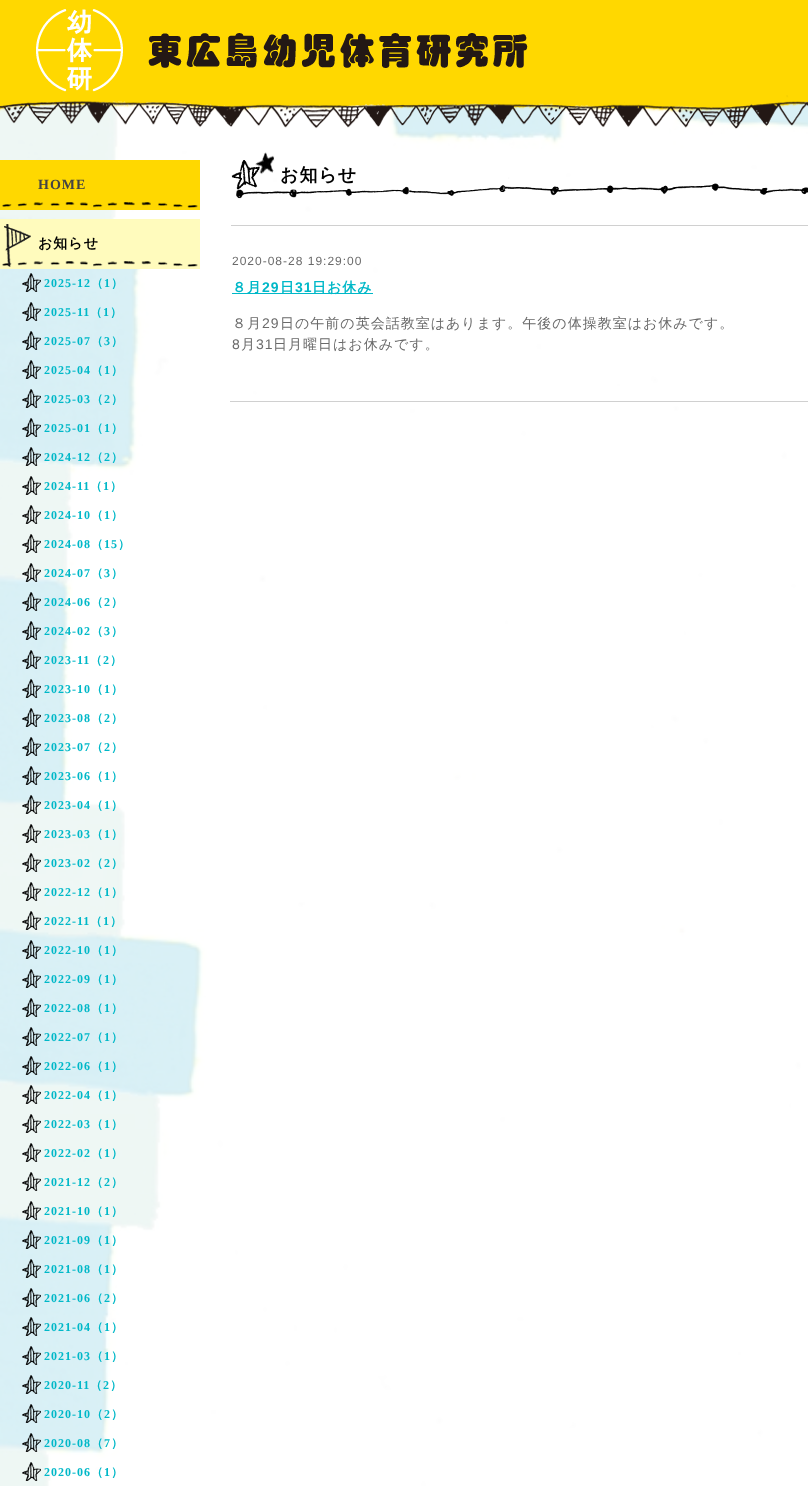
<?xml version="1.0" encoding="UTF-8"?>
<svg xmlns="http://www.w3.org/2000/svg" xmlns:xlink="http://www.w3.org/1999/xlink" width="808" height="1486">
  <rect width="100%" height="100%" fill="#ffffff" />
  <image x="0" y="100" width="808" height="1386" xlink:href="image1.png" />
  <image x="0" y="0" width="808" height="129" xlink:href="image2.png" />
  <image x="36" y="9" width="492" height="83" xlink:href="image3.png" />
  <image x="0" y="160" width="200" height="50" xlink:href="image4.png" />
  <image x="0" y="219" width="200" height="50" xlink:href="image5.png" />
  <image x="22" y="273" width="19" height="19" xlink:href="image6.png" />
  <image x="22" y="302" width="19" height="19" xlink:href="image7.png" />
  <image x="22" y="331" width="19" height="19" xlink:href="image8.png" />
  <image x="22" y="360" width="19" height="19" xlink:href="image9.png" />
  <image x="22" y="389" width="19" height="19" xlink:href="image10.png" />
  <image x="22" y="418" width="19" height="19" xlink:href="image11.png" />
  <image x="22" y="447" width="19" height="19" xlink:href="image12.png" />
  <image x="22" y="476" width="19" height="19" xlink:href="image13.png" />
  <image x="22" y="505" width="19" height="19" xlink:href="image14.png" />
  <image x="22" y="534" width="19" height="19" xlink:href="image15.png" />
  <image x="22" y="563" width="19" height="19" xlink:href="image16.png" />
  <image x="22" y="592" width="19" height="19" xlink:href="image17.png" />
  <image x="22" y="621" width="19" height="19" xlink:href="image18.png" />
  <image x="22" y="650" width="19" height="19" xlink:href="image19.png" />
  <image x="22" y="679" width="19" height="19" xlink:href="image20.png" />
  <image x="22" y="708" width="19" height="19" xlink:href="image21.png" />
  <image x="22" y="737" width="19" height="19" xlink:href="image22.png" />
  <image x="22" y="766" width="19" height="19" xlink:href="image23.png" />
  <image x="22" y="795" width="19" height="19" xlink:href="image24.png" />
  <image x="22" y="824" width="19" height="19" xlink:href="image25.png" />
  <image x="22" y="853" width="19" height="19" xlink:href="image26.png" />
  <image x="22" y="882" width="19" height="19" xlink:href="image27.png" />
  <image x="22" y="911" width="19" height="19" xlink:href="image28.png" />
  <image x="22" y="940" width="19" height="19" xlink:href="image29.png" />
  <image x="22" y="969" width="19" height="19" xlink:href="image30.png" />
  <image x="22" y="998" width="19" height="19" xlink:href="image31.png" />
  <image x="22" y="1027" width="19" height="19" xlink:href="image32.png" />
  <image x="22" y="1056" width="19" height="19" xlink:href="image33.png" />
  <image x="22" y="1085" width="19" height="19" xlink:href="image34.png" />
  <image x="22" y="1114" width="19" height="19" xlink:href="image35.png" />
  <image x="22" y="1143" width="19" height="19" xlink:href="image15.png" />
  <image x="22" y="1172" width="19" height="19" xlink:href="image15.png" />
  <image x="22" y="1201" width="19" height="19" xlink:href="image36.png" />
  <image x="22" y="1230" width="19" height="19" xlink:href="image37.png" />
  <image x="22" y="1259" width="19" height="19" xlink:href="image38.png" />
  <image x="22" y="1288" width="19" height="19" xlink:href="image39.png" />
  <image x="22" y="1317" width="19" height="19" xlink:href="image40.png" />
  <image x="22" y="1346" width="19" height="19" xlink:href="image41.png" />
  <image x="22" y="1375" width="19" height="19" xlink:href="image42.png" />
  <image x="22" y="1404" width="19" height="19" xlink:href="image43.png" />
  <image x="22" y="1433" width="19" height="19" xlink:href="image44.png" />
  <image x="22" y="1462" width="19" height="19" xlink:href="image45.png" />
  <image x="231" y="152" width="577" height="47" xlink:href="image46.png" />
  <rect x="230" y="401" width="578" height="1" fill="#d0d0d0" />
  <rect x="231" y="225" width="577" height="1" fill="#d0d0d0" />
  <rect x="232" y="293" width="141" height="1" fill="#00b8c8" />
  <text x="38" y="189" style="font-family: Liberation Serif; font-size: 14px; font-weight: bold; letter-spacing: 1px; fill: #444444">HOME</text>
  <text x="38" y="248" style="font-family: WenQuanYi Zen Hei; font-size: 14px; font-weight: bold; letter-spacing: 1px; fill: #000000">お知らせ</text>
  <text x="44" y="287" style="font-family: Liberation Serif; font-size: 12px; font-weight: bold; letter-spacing: 1px; fill: #00b8c8">2025-12</text>
  <text x="91" y="287" style="font-family: WenQuanYi Zen Hei; font-size: 12px; font-weight: bold; letter-spacing: 1px; fill: #00b8c8">（</text>
  <text x="104" y="287" style="font-family: Liberation Serif; font-size: 12px; font-weight: bold; letter-spacing: 1px; fill: #00b8c8">1</text>
  <text x="111" y="287" style="font-family: WenQuanYi Zen Hei; font-size: 12px; font-weight: bold; letter-spacing: 1px; fill: #00b8c8">）</text>
  <text x="44" y="316" style="font-family: Liberation Serif; font-size: 12px; font-weight: bold; letter-spacing: 1px; fill: #00b8c8">2025-11</text>
  <text x="90" y="316" style="font-family: WenQuanYi Zen Hei; font-size: 12px; font-weight: bold; letter-spacing: 1px; fill: #00b8c8">（</text>
  <text x="103" y="316" style="font-family: Liberation Serif; font-size: 12px; font-weight: bold; letter-spacing: 1px; fill: #00b8c8">1</text>
  <text x="110" y="316" style="font-family: WenQuanYi Zen Hei; font-size: 12px; font-weight: bold; letter-spacing: 1px; fill: #00b8c8">）</text>
  <text x="44" y="345" style="font-family: Liberation Serif; font-size: 12px; font-weight: bold; letter-spacing: 1px; fill: #00b8c8">2025-07</text>
  <text x="91" y="345" style="font-family: WenQuanYi Zen Hei; font-size: 12px; font-weight: bold; letter-spacing: 1px; fill: #00b8c8">（</text>
  <text x="104" y="345" style="font-family: Liberation Serif; font-size: 12px; font-weight: bold; letter-spacing: 1px; fill: #00b8c8">3</text>
  <text x="111" y="345" style="font-family: WenQuanYi Zen Hei; font-size: 12px; font-weight: bold; letter-spacing: 1px; fill: #00b8c8">）</text>
  <text x="44" y="374" style="font-family: Liberation Serif; font-size: 12px; font-weight: bold; letter-spacing: 1px; fill: #00b8c8">2025-04</text>
  <text x="91" y="374" style="font-family: WenQuanYi Zen Hei; font-size: 12px; font-weight: bold; letter-spacing: 1px; fill: #00b8c8">（</text>
  <text x="104" y="374" style="font-family: Liberation Serif; font-size: 12px; font-weight: bold; letter-spacing: 1px; fill: #00b8c8">1</text>
  <text x="111" y="374" style="font-family: WenQuanYi Zen Hei; font-size: 12px; font-weight: bold; letter-spacing: 1px; fill: #00b8c8">）</text>
  <text x="44" y="403" style="font-family: Liberation Serif; font-size: 12px; font-weight: bold; letter-spacing: 1px; fill: #00b8c8">2025-03</text>
  <text x="91" y="403" style="font-family: WenQuanYi Zen Hei; font-size: 12px; font-weight: bold; letter-spacing: 1px; fill: #00b8c8">（</text>
  <text x="104" y="403" style="font-family: Liberation Serif; font-size: 12px; font-weight: bold; letter-spacing: 1px; fill: #00b8c8">2</text>
  <text x="111" y="403" style="font-family: WenQuanYi Zen Hei; font-size: 12px; font-weight: bold; letter-spacing: 1px; fill: #00b8c8">）</text>
  <text x="44" y="432" style="font-family: Liberation Serif; font-size: 12px; font-weight: bold; letter-spacing: 1px; fill: #00b8c8">2025-01</text>
  <text x="91" y="432" style="font-family: WenQuanYi Zen Hei; font-size: 12px; font-weight: bold; letter-spacing: 1px; fill: #00b8c8">（</text>
  <text x="104" y="432" style="font-family: Liberation Serif; font-size: 12px; font-weight: bold; letter-spacing: 1px; fill: #00b8c8">1</text>
  <text x="111" y="432" style="font-family: WenQuanYi Zen Hei; font-size: 12px; font-weight: bold; letter-spacing: 1px; fill: #00b8c8">）</text>
  <text x="44" y="461" style="font-family: Liberation Serif; font-size: 12px; font-weight: bold; letter-spacing: 1px; fill: #00b8c8">2024-12</text>
  <text x="91" y="461" style="font-family: WenQuanYi Zen Hei; font-size: 12px; font-weight: bold; letter-spacing: 1px; fill: #00b8c8">（</text>
  <text x="104" y="461" style="font-family: Liberation Serif; font-size: 12px; font-weight: bold; letter-spacing: 1px; fill: #00b8c8">2</text>
  <text x="111" y="461" style="font-family: WenQuanYi Zen Hei; font-size: 12px; font-weight: bold; letter-spacing: 1px; fill: #00b8c8">）</text>
  <text x="44" y="490" style="font-family: Liberation Serif; font-size: 12px; font-weight: bold; letter-spacing: 1px; fill: #00b8c8">2024-11</text>
  <text x="90" y="490" style="font-family: WenQuanYi Zen Hei; font-size: 12px; font-weight: bold; letter-spacing: 1px; fill: #00b8c8">（</text>
  <text x="103" y="490" style="font-family: Liberation Serif; font-size: 12px; font-weight: bold; letter-spacing: 1px; fill: #00b8c8">1</text>
  <text x="110" y="490" style="font-family: WenQuanYi Zen Hei; font-size: 12px; font-weight: bold; letter-spacing: 1px; fill: #00b8c8">）</text>
  <text x="44" y="519" style="font-family: Liberation Serif; font-size: 12px; font-weight: bold; letter-spacing: 1px; fill: #00b8c8">2024-10</text>
  <text x="91" y="519" style="font-family: WenQuanYi Zen Hei; font-size: 12px; font-weight: bold; letter-spacing: 1px; fill: #00b8c8">（</text>
  <text x="104" y="519" style="font-family: Liberation Serif; font-size: 12px; font-weight: bold; letter-spacing: 1px; fill: #00b8c8">1</text>
  <text x="111" y="519" style="font-family: WenQuanYi Zen Hei; font-size: 12px; font-weight: bold; letter-spacing: 1px; fill: #00b8c8">）</text>
  <text x="44" y="548" style="font-family: Liberation Serif; font-size: 12px; font-weight: bold; letter-spacing: 1px; fill: #00b8c8">2024-08</text>
  <text x="91" y="548" style="font-family: WenQuanYi Zen Hei; font-size: 12px; font-weight: bold; letter-spacing: 1px; fill: #00b8c8">（</text>
  <text x="104" y="548" style="font-family: Liberation Serif; font-size: 12px; font-weight: bold; letter-spacing: 1px; fill: #00b8c8">15</text>
  <text x="118" y="548" style="font-family: WenQuanYi Zen Hei; font-size: 12px; font-weight: bold; letter-spacing: 1px; fill: #00b8c8">）</text>
  <text x="44" y="577" style="font-family: Liberation Serif; font-size: 12px; font-weight: bold; letter-spacing: 1px; fill: #00b8c8">2024-07</text>
  <text x="91" y="577" style="font-family: WenQuanYi Zen Hei; font-size: 12px; font-weight: bold; letter-spacing: 1px; fill: #00b8c8">（</text>
  <text x="104" y="577" style="font-family: Liberation Serif; font-size: 12px; font-weight: bold; letter-spacing: 1px; fill: #00b8c8">3</text>
  <text x="111" y="577" style="font-family: WenQuanYi Zen Hei; font-size: 12px; font-weight: bold; letter-spacing: 1px; fill: #00b8c8">）</text>
  <text x="44" y="606" style="font-family: Liberation Serif; font-size: 12px; font-weight: bold; letter-spacing: 1px; fill: #00b8c8">2024-06</text>
  <text x="91" y="606" style="font-family: WenQuanYi Zen Hei; font-size: 12px; font-weight: bold; letter-spacing: 1px; fill: #00b8c8">（</text>
  <text x="104" y="606" style="font-family: Liberation Serif; font-size: 12px; font-weight: bold; letter-spacing: 1px; fill: #00b8c8">2</text>
  <text x="111" y="606" style="font-family: WenQuanYi Zen Hei; font-size: 12px; font-weight: bold; letter-spacing: 1px; fill: #00b8c8">）</text>
  <text x="44" y="635" style="font-family: Liberation Serif; font-size: 12px; font-weight: bold; letter-spacing: 1px; fill: #00b8c8">2024-02</text>
  <text x="91" y="635" style="font-family: WenQuanYi Zen Hei; font-size: 12px; font-weight: bold; letter-spacing: 1px; fill: #00b8c8">（</text>
  <text x="104" y="635" style="font-family: Liberation Serif; font-size: 12px; font-weight: bold; letter-spacing: 1px; fill: #00b8c8">3</text>
  <text x="111" y="635" style="font-family: WenQuanYi Zen Hei; font-size: 12px; font-weight: bold; letter-spacing: 1px; fill: #00b8c8">）</text>
  <text x="44" y="664" style="font-family: Liberation Serif; font-size: 12px; font-weight: bold; letter-spacing: 1px; fill: #00b8c8">2023-11</text>
  <text x="90" y="664" style="font-family: WenQuanYi Zen Hei; font-size: 12px; font-weight: bold; letter-spacing: 1px; fill: #00b8c8">（</text>
  <text x="103" y="664" style="font-family: Liberation Serif; font-size: 12px; font-weight: bold; letter-spacing: 1px; fill: #00b8c8">2</text>
  <text x="110" y="664" style="font-family: WenQuanYi Zen Hei; font-size: 12px; font-weight: bold; letter-spacing: 1px; fill: #00b8c8">）</text>
  <text x="44" y="693" style="font-family: Liberation Serif; font-size: 12px; font-weight: bold; letter-spacing: 1px; fill: #00b8c8">2023-10</text>
  <text x="91" y="693" style="font-family: WenQuanYi Zen Hei; font-size: 12px; font-weight: bold; letter-spacing: 1px; fill: #00b8c8">（</text>
  <text x="104" y="693" style="font-family: Liberation Serif; font-size: 12px; font-weight: bold; letter-spacing: 1px; fill: #00b8c8">1</text>
  <text x="111" y="693" style="font-family: WenQuanYi Zen Hei; font-size: 12px; font-weight: bold; letter-spacing: 1px; fill: #00b8c8">）</text>
  <text x="44" y="722" style="font-family: Liberation Serif; font-size: 12px; font-weight: bold; letter-spacing: 1px; fill: #00b8c8">2023-08</text>
  <text x="91" y="722" style="font-family: WenQuanYi Zen Hei; font-size: 12px; font-weight: bold; letter-spacing: 1px; fill: #00b8c8">（</text>
  <text x="104" y="722" style="font-family: Liberation Serif; font-size: 12px; font-weight: bold; letter-spacing: 1px; fill: #00b8c8">2</text>
  <text x="111" y="722" style="font-family: WenQuanYi Zen Hei; font-size: 12px; font-weight: bold; letter-spacing: 1px; fill: #00b8c8">）</text>
  <text x="44" y="751" style="font-family: Liberation Serif; font-size: 12px; font-weight: bold; letter-spacing: 1px; fill: #00b8c8">2023-07</text>
  <text x="91" y="751" style="font-family: WenQuanYi Zen Hei; font-size: 12px; font-weight: bold; letter-spacing: 1px; fill: #00b8c8">（</text>
  <text x="104" y="751" style="font-family: Liberation Serif; font-size: 12px; font-weight: bold; letter-spacing: 1px; fill: #00b8c8">2</text>
  <text x="111" y="751" style="font-family: WenQuanYi Zen Hei; font-size: 12px; font-weight: bold; letter-spacing: 1px; fill: #00b8c8">）</text>
  <text x="44" y="780" style="font-family: Liberation Serif; font-size: 12px; font-weight: bold; letter-spacing: 1px; fill: #00b8c8">2023-06</text>
  <text x="91" y="780" style="font-family: WenQuanYi Zen Hei; font-size: 12px; font-weight: bold; letter-spacing: 1px; fill: #00b8c8">（</text>
  <text x="104" y="780" style="font-family: Liberation Serif; font-size: 12px; font-weight: bold; letter-spacing: 1px; fill: #00b8c8">1</text>
  <text x="111" y="780" style="font-family: WenQuanYi Zen Hei; font-size: 12px; font-weight: bold; letter-spacing: 1px; fill: #00b8c8">）</text>
  <text x="44" y="809" style="font-family: Liberation Serif; font-size: 12px; font-weight: bold; letter-spacing: 1px; fill: #00b8c8">2023-04</text>
  <text x="91" y="809" style="font-family: WenQuanYi Zen Hei; font-size: 12px; font-weight: bold; letter-spacing: 1px; fill: #00b8c8">（</text>
  <text x="104" y="809" style="font-family: Liberation Serif; font-size: 12px; font-weight: bold; letter-spacing: 1px; fill: #00b8c8">1</text>
  <text x="111" y="809" style="font-family: WenQuanYi Zen Hei; font-size: 12px; font-weight: bold; letter-spacing: 1px; fill: #00b8c8">）</text>
  <text x="44" y="838" style="font-family: Liberation Serif; font-size: 12px; font-weight: bold; letter-spacing: 1px; fill: #00b8c8">2023-03</text>
  <text x="91" y="838" style="font-family: WenQuanYi Zen Hei; font-size: 12px; font-weight: bold; letter-spacing: 1px; fill: #00b8c8">（</text>
  <text x="104" y="838" style="font-family: Liberation Serif; font-size: 12px; font-weight: bold; letter-spacing: 1px; fill: #00b8c8">1</text>
  <text x="111" y="838" style="font-family: WenQuanYi Zen Hei; font-size: 12px; font-weight: bold; letter-spacing: 1px; fill: #00b8c8">）</text>
  <text x="44" y="867" style="font-family: Liberation Serif; font-size: 12px; font-weight: bold; letter-spacing: 1px; fill: #00b8c8">2023-02</text>
  <text x="91" y="867" style="font-family: WenQuanYi Zen Hei; font-size: 12px; font-weight: bold; letter-spacing: 1px; fill: #00b8c8">（</text>
  <text x="104" y="867" style="font-family: Liberation Serif; font-size: 12px; font-weight: bold; letter-spacing: 1px; fill: #00b8c8">2</text>
  <text x="111" y="867" style="font-family: WenQuanYi Zen Hei; font-size: 12px; font-weight: bold; letter-spacing: 1px; fill: #00b8c8">）</text>
  <text x="44" y="896" style="font-family: Liberation Serif; font-size: 12px; font-weight: bold; letter-spacing: 1px; fill: #00b8c8">2022-12</text>
  <text x="91" y="896" style="font-family: WenQuanYi Zen Hei; font-size: 12px; font-weight: bold; letter-spacing: 1px; fill: #00b8c8">（</text>
  <text x="104" y="896" style="font-family: Liberation Serif; font-size: 12px; font-weight: bold; letter-spacing: 1px; fill: #00b8c8">1</text>
  <text x="111" y="896" style="font-family: WenQuanYi Zen Hei; font-size: 12px; font-weight: bold; letter-spacing: 1px; fill: #00b8c8">）</text>
  <text x="44" y="925" style="font-family: Liberation Serif; font-size: 12px; font-weight: bold; letter-spacing: 1px; fill: #00b8c8">2022-11</text>
  <text x="90" y="925" style="font-family: WenQuanYi Zen Hei; font-size: 12px; font-weight: bold; letter-spacing: 1px; fill: #00b8c8">（</text>
  <text x="103" y="925" style="font-family: Liberation Serif; font-size: 12px; font-weight: bold; letter-spacing: 1px; fill: #00b8c8">1</text>
  <text x="110" y="925" style="font-family: WenQuanYi Zen Hei; font-size: 12px; font-weight: bold; letter-spacing: 1px; fill: #00b8c8">）</text>
  <text x="44" y="954" style="font-family: Liberation Serif; font-size: 12px; font-weight: bold; letter-spacing: 1px; fill: #00b8c8">2022-10</text>
  <text x="91" y="954" style="font-family: WenQuanYi Zen Hei; font-size: 12px; font-weight: bold; letter-spacing: 1px; fill: #00b8c8">（</text>
  <text x="104" y="954" style="font-family: Liberation Serif; font-size: 12px; font-weight: bold; letter-spacing: 1px; fill: #00b8c8">1</text>
  <text x="111" y="954" style="font-family: WenQuanYi Zen Hei; font-size: 12px; font-weight: bold; letter-spacing: 1px; fill: #00b8c8">）</text>
  <text x="44" y="983" style="font-family: Liberation Serif; font-size: 12px; font-weight: bold; letter-spacing: 1px; fill: #00b8c8">2022-09</text>
  <text x="91" y="983" style="font-family: WenQuanYi Zen Hei; font-size: 12px; font-weight: bold; letter-spacing: 1px; fill: #00b8c8">（</text>
  <text x="104" y="983" style="font-family: Liberation Serif; font-size: 12px; font-weight: bold; letter-spacing: 1px; fill: #00b8c8">1</text>
  <text x="111" y="983" style="font-family: WenQuanYi Zen Hei; font-size: 12px; font-weight: bold; letter-spacing: 1px; fill: #00b8c8">）</text>
  <text x="44" y="1012" style="font-family: Liberation Serif; font-size: 12px; font-weight: bold; letter-spacing: 1px; fill: #00b8c8">2022-08</text>
  <text x="91" y="1012" style="font-family: WenQuanYi Zen Hei; font-size: 12px; font-weight: bold; letter-spacing: 1px; fill: #00b8c8">（</text>
  <text x="104" y="1012" style="font-family: Liberation Serif; font-size: 12px; font-weight: bold; letter-spacing: 1px; fill: #00b8c8">1</text>
  <text x="111" y="1012" style="font-family: WenQuanYi Zen Hei; font-size: 12px; font-weight: bold; letter-spacing: 1px; fill: #00b8c8">）</text>
  <text x="44" y="1041" style="font-family: Liberation Serif; font-size: 12px; font-weight: bold; letter-spacing: 1px; fill: #00b8c8">2022-07</text>
  <text x="91" y="1041" style="font-family: WenQuanYi Zen Hei; font-size: 12px; font-weight: bold; letter-spacing: 1px; fill: #00b8c8">（</text>
  <text x="104" y="1041" style="font-family: Liberation Serif; font-size: 12px; font-weight: bold; letter-spacing: 1px; fill: #00b8c8">1</text>
  <text x="111" y="1041" style="font-family: WenQuanYi Zen Hei; font-size: 12px; font-weight: bold; letter-spacing: 1px; fill: #00b8c8">）</text>
  <text x="44" y="1070" style="font-family: Liberation Serif; font-size: 12px; font-weight: bold; letter-spacing: 1px; fill: #00b8c8">2022-06</text>
  <text x="91" y="1070" style="font-family: WenQuanYi Zen Hei; font-size: 12px; font-weight: bold; letter-spacing: 1px; fill: #00b8c8">（</text>
  <text x="104" y="1070" style="font-family: Liberation Serif; font-size: 12px; font-weight: bold; letter-spacing: 1px; fill: #00b8c8">1</text>
  <text x="111" y="1070" style="font-family: WenQuanYi Zen Hei; font-size: 12px; font-weight: bold; letter-spacing: 1px; fill: #00b8c8">）</text>
  <text x="44" y="1099" style="font-family: Liberation Serif; font-size: 12px; font-weight: bold; letter-spacing: 1px; fill: #00b8c8">2022-04</text>
  <text x="91" y="1099" style="font-family: WenQuanYi Zen Hei; font-size: 12px; font-weight: bold; letter-spacing: 1px; fill: #00b8c8">（</text>
  <text x="104" y="1099" style="font-family: Liberation Serif; font-size: 12px; font-weight: bold; letter-spacing: 1px; fill: #00b8c8">1</text>
  <text x="111" y="1099" style="font-family: WenQuanYi Zen Hei; font-size: 12px; font-weight: bold; letter-spacing: 1px; fill: #00b8c8">）</text>
  <text x="44" y="1128" style="font-family: Liberation Serif; font-size: 12px; font-weight: bold; letter-spacing: 1px; fill: #00b8c8">2022-03</text>
  <text x="91" y="1128" style="font-family: WenQuanYi Zen Hei; font-size: 12px; font-weight: bold; letter-spacing: 1px; fill: #00b8c8">（</text>
  <text x="104" y="1128" style="font-family: Liberation Serif; font-size: 12px; font-weight: bold; letter-spacing: 1px; fill: #00b8c8">1</text>
  <text x="111" y="1128" style="font-family: WenQuanYi Zen Hei; font-size: 12px; font-weight: bold; letter-spacing: 1px; fill: #00b8c8">）</text>
  <text x="44" y="1157" style="font-family: Liberation Serif; font-size: 12px; font-weight: bold; letter-spacing: 1px; fill: #00b8c8">2022-02</text>
  <text x="91" y="1157" style="font-family: WenQuanYi Zen Hei; font-size: 12px; font-weight: bold; letter-spacing: 1px; fill: #00b8c8">（</text>
  <text x="104" y="1157" style="font-family: Liberation Serif; font-size: 12px; font-weight: bold; letter-spacing: 1px; fill: #00b8c8">1</text>
  <text x="111" y="1157" style="font-family: WenQuanYi Zen Hei; font-size: 12px; font-weight: bold; letter-spacing: 1px; fill: #00b8c8">）</text>
  <text x="44" y="1186" style="font-family: Liberation Serif; font-size: 12px; font-weight: bold; letter-spacing: 1px; fill: #00b8c8">2021-12</text>
  <text x="91" y="1186" style="font-family: WenQuanYi Zen Hei; font-size: 12px; font-weight: bold; letter-spacing: 1px; fill: #00b8c8">（</text>
  <text x="104" y="1186" style="font-family: Liberation Serif; font-size: 12px; font-weight: bold; letter-spacing: 1px; fill: #00b8c8">2</text>
  <text x="111" y="1186" style="font-family: WenQuanYi Zen Hei; font-size: 12px; font-weight: bold; letter-spacing: 1px; fill: #00b8c8">）</text>
  <text x="44" y="1215" style="font-family: Liberation Serif; font-size: 12px; font-weight: bold; letter-spacing: 1px; fill: #00b8c8">2021-10</text>
  <text x="91" y="1215" style="font-family: WenQuanYi Zen Hei; font-size: 12px; font-weight: bold; letter-spacing: 1px; fill: #00b8c8">（</text>
  <text x="104" y="1215" style="font-family: Liberation Serif; font-size: 12px; font-weight: bold; letter-spacing: 1px; fill: #00b8c8">1</text>
  <text x="111" y="1215" style="font-family: WenQuanYi Zen Hei; font-size: 12px; font-weight: bold; letter-spacing: 1px; fill: #00b8c8">）</text>
  <text x="44" y="1244" style="font-family: Liberation Serif; font-size: 12px; font-weight: bold; letter-spacing: 1px; fill: #00b8c8">2021-09</text>
  <text x="91" y="1244" style="font-family: WenQuanYi Zen Hei; font-size: 12px; font-weight: bold; letter-spacing: 1px; fill: #00b8c8">（</text>
  <text x="104" y="1244" style="font-family: Liberation Serif; font-size: 12px; font-weight: bold; letter-spacing: 1px; fill: #00b8c8">1</text>
  <text x="111" y="1244" style="font-family: WenQuanYi Zen Hei; font-size: 12px; font-weight: bold; letter-spacing: 1px; fill: #00b8c8">）</text>
  <text x="44" y="1273" style="font-family: Liberation Serif; font-size: 12px; font-weight: bold; letter-spacing: 1px; fill: #00b8c8">2021-08</text>
  <text x="91" y="1273" style="font-family: WenQuanYi Zen Hei; font-size: 12px; font-weight: bold; letter-spacing: 1px; fill: #00b8c8">（</text>
  <text x="104" y="1273" style="font-family: Liberation Serif; font-size: 12px; font-weight: bold; letter-spacing: 1px; fill: #00b8c8">1</text>
  <text x="111" y="1273" style="font-family: WenQuanYi Zen Hei; font-size: 12px; font-weight: bold; letter-spacing: 1px; fill: #00b8c8">）</text>
  <text x="44" y="1302" style="font-family: Liberation Serif; font-size: 12px; font-weight: bold; letter-spacing: 1px; fill: #00b8c8">2021-06</text>
  <text x="91" y="1302" style="font-family: WenQuanYi Zen Hei; font-size: 12px; font-weight: bold; letter-spacing: 1px; fill: #00b8c8">（</text>
  <text x="104" y="1302" style="font-family: Liberation Serif; font-size: 12px; font-weight: bold; letter-spacing: 1px; fill: #00b8c8">2</text>
  <text x="111" y="1302" style="font-family: WenQuanYi Zen Hei; font-size: 12px; font-weight: bold; letter-spacing: 1px; fill: #00b8c8">）</text>
  <text x="44" y="1331" style="font-family: Liberation Serif; font-size: 12px; font-weight: bold; letter-spacing: 1px; fill: #00b8c8">2021-04</text>
  <text x="91" y="1331" style="font-family: WenQuanYi Zen Hei; font-size: 12px; font-weight: bold; letter-spacing: 1px; fill: #00b8c8">（</text>
  <text x="104" y="1331" style="font-family: Liberation Serif; font-size: 12px; font-weight: bold; letter-spacing: 1px; fill: #00b8c8">1</text>
  <text x="111" y="1331" style="font-family: WenQuanYi Zen Hei; font-size: 12px; font-weight: bold; letter-spacing: 1px; fill: #00b8c8">）</text>
  <text x="44" y="1360" style="font-family: Liberation Serif; font-size: 12px; font-weight: bold; letter-spacing: 1px; fill: #00b8c8">2021-03</text>
  <text x="91" y="1360" style="font-family: WenQuanYi Zen Hei; font-size: 12px; font-weight: bold; letter-spacing: 1px; fill: #00b8c8">（</text>
  <text x="104" y="1360" style="font-family: Liberation Serif; font-size: 12px; font-weight: bold; letter-spacing: 1px; fill: #00b8c8">1</text>
  <text x="111" y="1360" style="font-family: WenQuanYi Zen Hei; font-size: 12px; font-weight: bold; letter-spacing: 1px; fill: #00b8c8">）</text>
  <text x="44" y="1389" style="font-family: Liberation Serif; font-size: 12px; font-weight: bold; letter-spacing: 1px; fill: #00b8c8">2020-11</text>
  <text x="90" y="1389" style="font-family: WenQuanYi Zen Hei; font-size: 12px; font-weight: bold; letter-spacing: 1px; fill: #00b8c8">（</text>
  <text x="103" y="1389" style="font-family: Liberation Serif; font-size: 12px; font-weight: bold; letter-spacing: 1px; fill: #00b8c8">2</text>
  <text x="110" y="1389" style="font-family: WenQuanYi Zen Hei; font-size: 12px; font-weight: bold; letter-spacing: 1px; fill: #00b8c8">）</text>
  <text x="44" y="1418" style="font-family: Liberation Serif; font-size: 12px; font-weight: bold; letter-spacing: 1px; fill: #00b8c8">2020-10</text>
  <text x="91" y="1418" style="font-family: WenQuanYi Zen Hei; font-size: 12px; font-weight: bold; letter-spacing: 1px; fill: #00b8c8">（</text>
  <text x="104" y="1418" style="font-family: Liberation Serif; font-size: 12px; font-weight: bold; letter-spacing: 1px; fill: #00b8c8">2</text>
  <text x="111" y="1418" style="font-family: WenQuanYi Zen Hei; font-size: 12px; font-weight: bold; letter-spacing: 1px; fill: #00b8c8">）</text>
  <text x="44" y="1447" style="font-family: Liberation Serif; font-size: 12px; font-weight: bold; letter-spacing: 1px; fill: #00b8c8">2020-08</text>
  <text x="91" y="1447" style="font-family: WenQuanYi Zen Hei; font-size: 12px; font-weight: bold; letter-spacing: 1px; fill: #00b8c8">（</text>
  <text x="104" y="1447" style="font-family: Liberation Serif; font-size: 12px; font-weight: bold; letter-spacing: 1px; fill: #00b8c8">7</text>
  <text x="111" y="1447" style="font-family: WenQuanYi Zen Hei; font-size: 12px; font-weight: bold; letter-spacing: 1px; fill: #00b8c8">）</text>
  <text x="44" y="1476" style="font-family: Liberation Serif; font-size: 12px; font-weight: bold; letter-spacing: 1px; fill: #00b8c8">2020-06</text>
  <text x="91" y="1476" style="font-family: WenQuanYi Zen Hei; font-size: 12px; font-weight: bold; letter-spacing: 1px; fill: #00b8c8">（</text>
  <text x="104" y="1476" style="font-family: Liberation Serif; font-size: 12px; font-weight: bold; letter-spacing: 1px; fill: #00b8c8">1</text>
  <text x="111" y="1476" style="font-family: WenQuanYi Zen Hei; font-size: 12px; font-weight: bold; letter-spacing: 1px; fill: #00b8c8">）</text>
  <text x="280" y="181" style="font-family: WenQuanYi Zen Hei; font-size: 18px; font-weight: bold; letter-spacing: 1px; fill: #000000">お知らせ</text>
  <text x="232" y="265" style="font-family: Liberation Sans; font-size: 12px; letter-spacing: 1px; fill: #6a6a6a">2020-08-28 19:29:00</text>
  <text x="232" y="292" style="font-family: WenQuanYi Zen Hei; font-size: 14px; font-weight: bold; letter-spacing: 1px; fill: #00b8c8">８月</text>
  <text x="262" y="292" style="font-family: Liberation Sans; font-size: 14px; font-weight: bold; letter-spacing: 1px; fill: #00b8c8">29</text>
  <text x="280" y="292" style="font-family: WenQuanYi Zen Hei; font-size: 14px; font-weight: bold; letter-spacing: 1px; fill: #00b8c8">日</text>
  <text x="295" y="292" style="font-family: Liberation Sans; font-size: 14px; font-weight: bold; letter-spacing: 1px; fill: #00b8c8">31</text>
  <text x="312" y="292" style="font-family: WenQuanYi Zen Hei; font-size: 14px; font-weight: bold; letter-spacing: 1px; fill: #00b8c8">日お休み</text>
  <text x="232" y="328" style="font-family: WenQuanYi Zen Hei; font-size: 14px; font-weight: 500; letter-spacing: 1px; fill: #6a6a6a">８月</text>
  <text x="262" y="328" style="font-family: Liberation Sans; font-size: 14px; letter-spacing: 1px; fill: #6a6a6a">29</text>
  <text x="280" y="328" style="font-family: WenQuanYi Zen Hei; font-size: 14px; font-weight: 500; letter-spacing: 1px; fill: #6a6a6a">日の午前の英会話教室はあります。午後の体操教室はお休みです。</text>
  <text x="232" y="349" style="font-family: Liberation Sans; font-size: 14px; letter-spacing: 1px; fill: #6a6a6a">8</text>
  <text x="241" y="349" style="font-family: WenQuanYi Zen Hei; font-size: 14px; font-weight: 500; letter-spacing: 1px; fill: #6a6a6a">月</text>
  <text x="256" y="349" style="font-family: Liberation Sans; font-size: 14px; letter-spacing: 1px; fill: #6a6a6a">31</text>
  <text x="273" y="349" style="font-family: WenQuanYi Zen Hei; font-size: 14px; font-weight: 500; letter-spacing: 1px; fill: #6a6a6a">日月曜日はお休みです。</text>
</svg>
